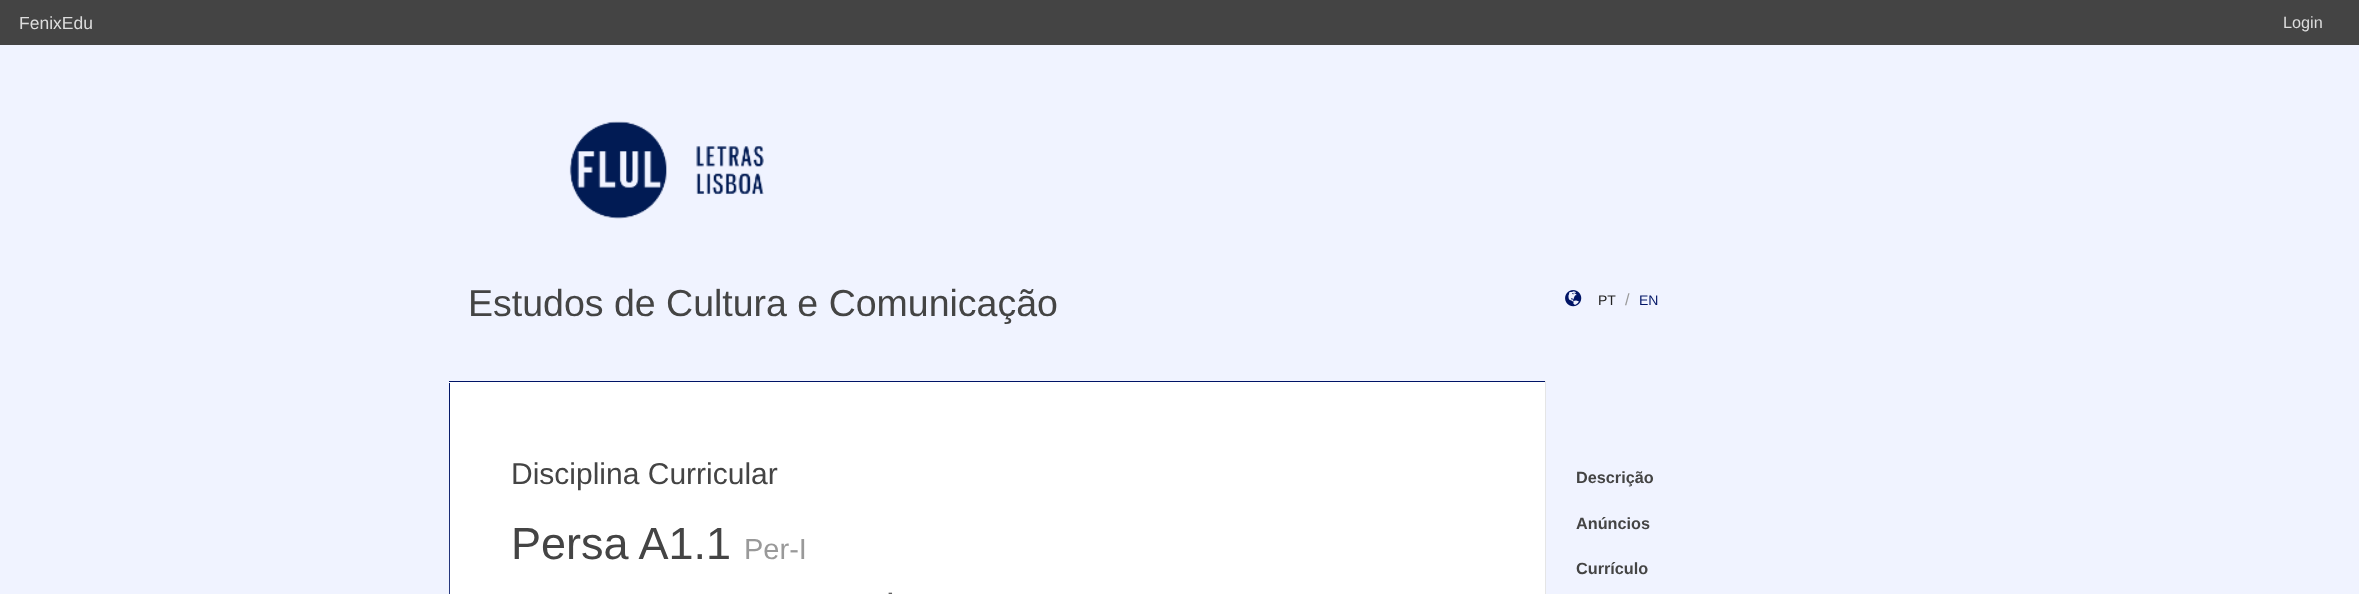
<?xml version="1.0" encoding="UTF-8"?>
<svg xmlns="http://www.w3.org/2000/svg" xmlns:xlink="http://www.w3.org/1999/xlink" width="2359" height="594">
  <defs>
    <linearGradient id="g1" gradientUnits="userSpaceOnUse" x1="449" y1="383" x2="449" y2="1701"><stop offset="0" stop-color="#001466" /><stop offset="1" stop-color="#ffffff" /></linearGradient>
  </defs>
  <rect width="100%" height="100%" fill="#f0f3ff" />
  <rect width="2359" height="45" fill="#444444" />
  <image x="569" y="121" width="195" height="98" xlink:href="image1.png" />
  <image x="1565" y="290" width="17" height="17" xlink:href="image2.png" />
  <rect x="449" y="382" width="1096" height="212" fill="#ffffff" />
  <rect x="449" y="381" width="1097" height="1" fill="#001466" />
  <rect x="1545" y="381" width="1" height="213" fill="#e5e5e5" />
  <rect x="449" y="383" width="1" height="211" fill="url(#g1)" />
  <text x="19" y="29" style="font-family: Liberation Sans; font-size: 17.5px; fill: #dddddd">FenixEdu</text>
  <text x="2283" y="28" style="font-family: Liberation Sans; font-size: 16.25px; fill: #dddddd">Login</text>
  <text x="468" y="316" style="font-family: Liberation Sans; font-size: 37.5px; fill: #444444">Estudos de Cultura e Comunicação</text>
  <text x="1598" y="305" style="font-family: Liberation Sans; font-size: 14px; fill: #222222">PT</text>
  <text x="1625" y="305" style="font-family: Liberation Sans; font-size: 16.25px; fill: #999999">/</text>
  <text x="1639" y="305" style="font-family: Liberation Sans; font-size: 14px; fill: #001466">EN</text>
  <text x="511" y="484" style="font-family: Liberation Sans; font-size: 30px; fill: #444444">Disciplina Curricular</text>
  <text x="511" y="559" style="font-family: Liberation Sans; font-size: 45px; fill: #444444">Persa A1.1</text>
  <text x="744" y="559" style="font-family: Liberation Sans; font-size: 29px; fill: #999999">Per-I</text>
  <text x="888" y="597" style="font-family: Liberation Sans; font-size: 14px; fill: #444444">-</text>
  <text x="1576" y="483" style="font-family: Liberation Sans; font-size: 16.25px; font-weight: bold; fill: #444444">Descrição</text>
  <text x="1576" y="529" style="font-family: Liberation Sans; font-size: 16.25px; font-weight: bold; fill: #444444">Anúncios</text>
  <text x="1576" y="574" style="font-family: Liberation Sans; font-size: 16.25px; font-weight: bold; fill: #444444">Currículo</text>
</svg>
